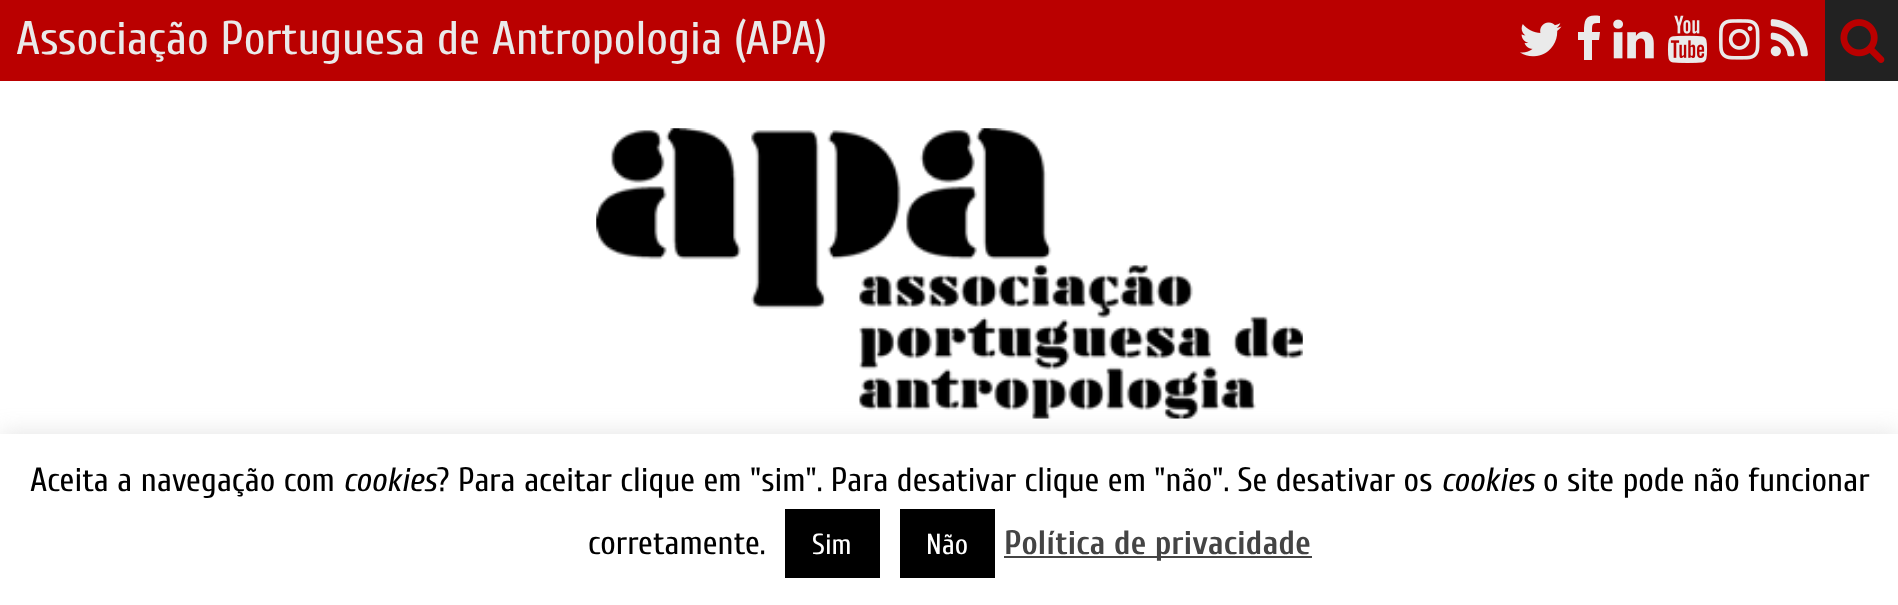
<?xml version="1.0" encoding="UTF-8"?>
<svg xmlns="http://www.w3.org/2000/svg" xmlns:xlink="http://www.w3.org/1999/xlink" width="1898" height="605">
  <rect width="100%" height="100%" fill="#ffffff" />
  <rect width="1825" height="81" fill="#ba0000" />
  <image x="1520" y="22" width="42" height="35" xlink:href="image1.png" />
  <path d="M 1600 16 v 7 c -8 0 -8 0 -8 9 h 8 l -1 8 h -7 v 20 h -8 v -20 h -6 v -8 h 6 c 0 -13 2 -18 16 -16 z" fill="#eaeaea" />
  <image x="1613" y="19" width="41" height="40" xlink:href="image2.png" />
  <image x="1667" y="15" width="41" height="48" xlink:href="image3.png" />
  <image x="1719" y="19" width="41" height="41" xlink:href="image4.png" />
  <image x="1770" y="19" width="38" height="38" xlink:href="image5.png" />
  <rect x="1825" width="73" height="81" fill="#222222" />
  <image x="1840" y="19" width="45" height="44" xlink:href="image6.png" />
  <image x="596" y="128" width="707" height="291" xlink:href="image7.png" />
  <rect y="432" width="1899" height="171" fill="#acabab" fill-opacity="0.3" filter="blur(11px)" />
  <rect y="434" width="1898" height="171" fill="#ffffff" />
  <rect x="785" y="509" width="95" height="69" fill="#000000" />
  <rect x="900" y="509" width="95" height="69" fill="#000000" />
  <rect x="1004" y="556" width="308" height="2" fill="#444444" />
  <text x="16" y="54" style="font-family: Cuprum; font-size: 47.25px; fill: #eaeaea">Associação Portuguesa de Antropologia (APA)</text>
  <text x="30" y="491" style="font-family: Cuprum; font-size: 33.75px; fill: #000000">Aceita a navegação com</text>
  <text x="343" y="491" style="font-family: Cuprum; font-size: 33.75px; font-style: italic; fill: #000000">cookies</text>
  <text x="437" y="491" style="font-family: Cuprum; font-size: 33.75px; fill: #000000">? Para aceitar clique em "sim". Para desativar clique em "não". Se desativar os</text>
  <text x="1441" y="491" style="font-family: Cuprum; font-size: 33.75px; font-style: italic; fill: #000000">cookies</text>
  <text x="1543" y="491" style="font-family: Cuprum; font-size: 33.75px; fill: #000000">o site pode não funcionar</text>
  <text x="588" y="554" style="font-family: Cuprum; font-size: 33.75px; fill: #000000">corretamente.</text>
  <text x="812" y="554" style="font-family: Cuprum; font-size: 29px; fill: #ffffff">Sim</text>
  <text x="926" y="554" style="font-family: Cuprum; font-size: 29px; fill: #ffffff">Não</text>
  <text x="1004" y="554" style="font-family: Cuprum; font-size: 33.75px; font-weight: bold; fill: #444444">Política de privacidade</text>
</svg>
